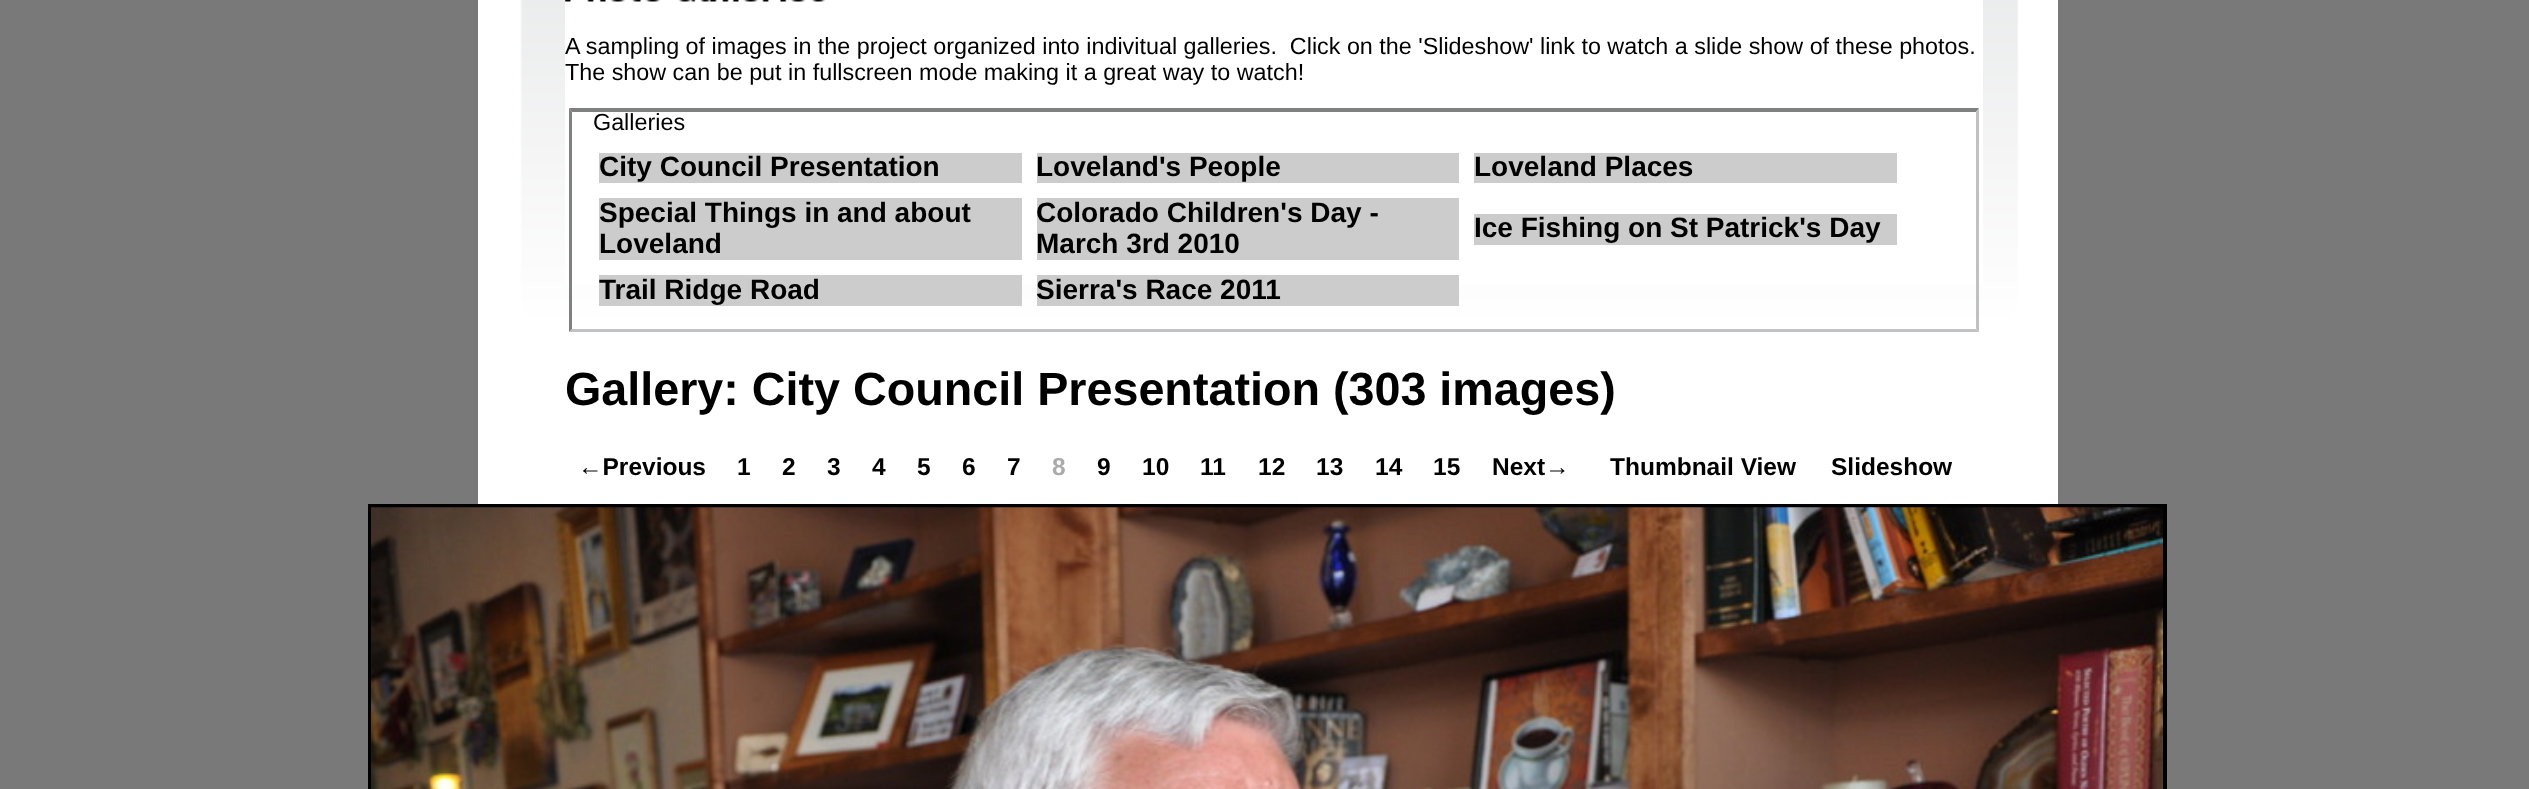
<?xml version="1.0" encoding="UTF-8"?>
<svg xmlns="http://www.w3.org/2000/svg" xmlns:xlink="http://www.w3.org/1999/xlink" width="2529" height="789">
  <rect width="100%" height="100%" fill="#797979" />
  <rect x="478" width="1580" height="504" fill="#ffffff" />
  <image x="520" y="0" width="1538" height="324" xlink:href="image1.png" />
  <rect x="565" width="1418" height="284" fill="#ffffff" />
  <image x="565" y="0" width="261" height="2" xlink:href="image2.png" />
  <path d="M 569 108 h 1410 l -3 4 h -1404 z" fill="#7f8181" />
  <path d="M 1979 108 v 224 l -3 -3 v -217 z" fill="#bfc1c2" />
  <path d="M 1979 332 h -1410 l 3 -3 h 1404 z" fill="#bfc1c2" />
  <path d="M 569 332 v -224 l 3 4 v 217 z" fill="#7f8181" />
  <rect x="599" y="153" width="423" height="30" fill="#cccccc" />
  <rect x="1037" y="153" width="422" height="30" fill="#cccccc" />
  <rect x="1474" y="153" width="423" height="30" fill="#cccccc" />
  <rect x="599" y="198" width="423" height="62" fill="#cccccc" />
  <rect x="1037" y="198" width="422" height="62" fill="#cccccc" />
  <rect x="1474" y="214" width="423" height="31" fill="#cccccc" />
  <rect x="599" y="275" width="423" height="31" fill="#cccccc" />
  <rect x="1037" y="275" width="422" height="31" fill="#cccccc" />
  <rect x="370" y="506" width="1795" height="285" fill="none" stroke="#000000" stroke-width="4" />
  <image x="371" y="507" width="1792" height="282" xlink:href="image3.png" />
  <text x="565" y="54" style="font-family: Liberation Sans; font-size: 23.33px; fill: #000000" xml:space="preserve">A sampling of images in the project organized into indivitual galleries.  Click on the 'Slideshow' link to watch a slide show of these photos.</text>
  <text x="565" y="80" style="font-family: Liberation Sans; font-size: 23.33px; fill: #000000">The show can be put in fullscreen mode making it a great way to watch!</text>
  <text x="593" y="130" style="font-family: Liberation Sans; font-size: 23.33px; fill: #000000">Galleries</text>
  <text x="599" y="176" style="font-family: Liberation Sans; font-size: 28px; font-weight: bold; fill: #000000">City Council Presentation</text>
  <text x="1036" y="176" style="font-family: Liberation Sans; font-size: 28px; font-weight: bold; fill: #000000">Loveland's People</text>
  <text x="1474" y="176" style="font-family: Liberation Sans; font-size: 28px; font-weight: bold; fill: #000000">Loveland Places</text>
  <text x="599" y="222" style="font-family: Liberation Sans; font-size: 28px; font-weight: bold; fill: #000000">Special Things in and about</text>
  <text x="599" y="253" style="font-family: Liberation Sans; font-size: 28px; font-weight: bold; fill: #000000">Loveland</text>
  <text x="1036" y="222" style="font-family: Liberation Sans; font-size: 28px; font-weight: bold; fill: #000000">Colorado Children's Day -</text>
  <text x="1036" y="253" style="font-family: Liberation Sans; font-size: 28px; font-weight: bold; fill: #000000">March 3rd 2010</text>
  <text x="1474" y="237" style="font-family: Liberation Sans; font-size: 28px; font-weight: bold; fill: #000000">Ice Fishing on St Patrick's Day</text>
  <text x="599" y="299" style="font-family: Liberation Sans; font-size: 28px; font-weight: bold; fill: #000000">Trail Ridge Road</text>
  <text x="1036" y="299" style="font-family: Liberation Sans; font-size: 28px; font-weight: bold; fill: #000000">Sierra's Race 2011</text>
  <text x="565" y="405" style="font-family: Liberation Sans; font-size: 46.7px; font-weight: bold; fill: #000000">Gallery: City Council Presentation (303 images)</text>
  <text x="578" y="475" style="font-family: Liberation Sans; font-size: 24.5px; font-weight: bold; fill: #000000">←Previous</text>
  <text x="737" y="475" style="font-family: Liberation Sans; font-size: 24.5px; font-weight: bold; fill: #000000">1</text>
  <text x="782" y="475" style="font-family: Liberation Sans; font-size: 24.5px; font-weight: bold; fill: #000000">2</text>
  <text x="827" y="475" style="font-family: Liberation Sans; font-size: 24.5px; font-weight: bold; fill: #000000">3</text>
  <text x="872" y="475" style="font-family: Liberation Sans; font-size: 24.5px; font-weight: bold; fill: #000000">4</text>
  <text x="917" y="475" style="font-family: Liberation Sans; font-size: 24.5px; font-weight: bold; fill: #000000">5</text>
  <text x="962" y="475" style="font-family: Liberation Sans; font-size: 24.5px; font-weight: bold; fill: #000000">6</text>
  <text x="1007" y="475" style="font-family: Liberation Sans; font-size: 24.5px; font-weight: bold; fill: #000000">7</text>
  <text x="1052" y="475" style="font-family: Liberation Sans; font-size: 24.5px; font-weight: bold; fill: #aaaaaa">8</text>
  <text x="1097" y="475" style="font-family: Liberation Sans; font-size: 24.5px; font-weight: bold; fill: #000000">9</text>
  <text x="1142" y="475" style="font-family: Liberation Sans; font-size: 24.5px; font-weight: bold; fill: #000000">10</text>
  <text x="1200" y="475" style="font-family: Liberation Sans; font-size: 24.5px; font-weight: bold; fill: #000000">11</text>
  <text x="1258" y="475" style="font-family: Liberation Sans; font-size: 24.5px; font-weight: bold; fill: #000000">12</text>
  <text x="1316" y="475" style="font-family: Liberation Sans; font-size: 24.5px; font-weight: bold; fill: #000000">13</text>
  <text x="1375" y="475" style="font-family: Liberation Sans; font-size: 24.5px; font-weight: bold; fill: #000000">14</text>
  <text x="1433" y="475" style="font-family: Liberation Sans; font-size: 24.5px; font-weight: bold; fill: #000000">15</text>
  <text x="1492" y="475" style="font-family: Liberation Sans; font-size: 24.5px; font-weight: bold; fill: #000000">Next→</text>
  <text x="1610" y="475" style="font-family: Liberation Sans; font-size: 24.5px; font-weight: bold; fill: #000000">Thumbnail View</text>
  <text x="1831" y="475" style="font-family: Liberation Sans; font-size: 24.5px; font-weight: bold; fill: #000000">Slideshow</text>
</svg>
